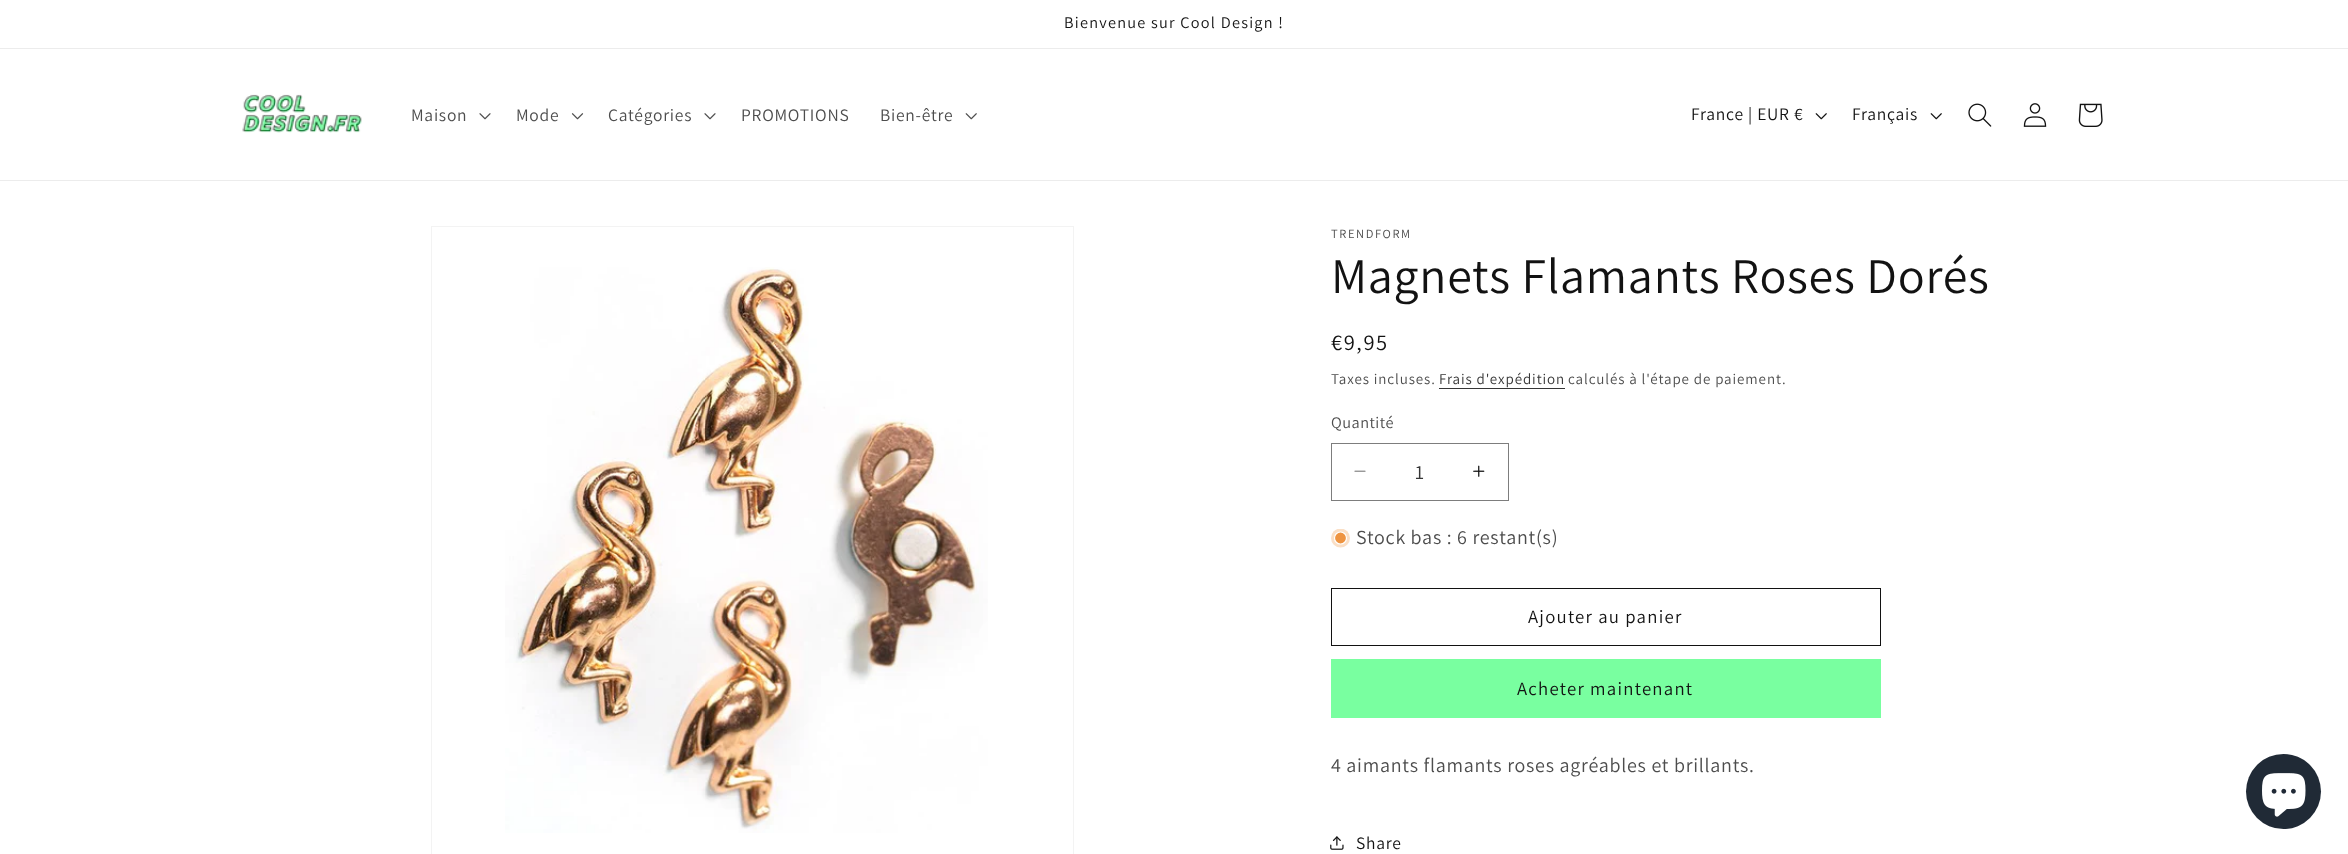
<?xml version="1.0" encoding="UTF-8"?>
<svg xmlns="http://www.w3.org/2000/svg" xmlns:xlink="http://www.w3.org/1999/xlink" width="2348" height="854">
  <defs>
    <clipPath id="clip1"><rect x="1331" y="529" width="19" height="19" /></clipPath>
  </defs>
  <rect width="100%" height="100%" fill="#ffffff" />
  <rect y="48" width="2348" height="1" fill="#ececec" />
  <rect y="180" width="2348" height="1" fill="#ececec" />
  <image x="242" y="94" width="120" height="39" xlink:href="image1.png" />
  <image x="479" y="113" width="12" height="7" xlink:href="image2.png" />
  <image x="571" y="113" width="13" height="7" xlink:href="image3.png" />
  <image x="704" y="113" width="12" height="7" xlink:href="image2.png" />
  <image x="965" y="113" width="12" height="7" xlink:href="image4.png" />
  <image x="1815" y="113" width="12" height="7" xlink:href="image5.png" />
  <image x="1930" y="113" width="12" height="7" xlink:href="image5.png" />
  <image x="1968" y="103" width="24" height="24" xlink:href="image6.png" />
  <image x="2023" y="103" width="24" height="24" xlink:href="image7.png" />
  <image x="2078" y="103" width="25" height="24" xlink:href="image8.png" />
  <rect x="431.5" y="226.5" width="642" height="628" fill="none" stroke="#f3f3f3" />
  <image x="505" y="267" width="483" height="566" xlink:href="image9.png" />
  <rect x="1439" y="388" width="126" height="1" fill="#363636" />
  <image x="1354" y="470" width="12" height="2" xlink:href="image10.png" />
  <image x="1473" y="465" width="12" height="12" xlink:href="image11.png" />
  <rect x="1331.5" y="443.5" width="177" height="57" fill="none" stroke="#7d7d7d" />
  <g clip-path="url(#clip1)">
    <circle cx="1340.5" cy="538" r="9.5" fill="#fadfc6" />
  </g>
  <circle cx="1340.5" cy="538" r="6" fill="#ee9441" stroke="#ffffff" stroke-width="1.2" />
  <rect x="1331.5" y="588.5" width="549" height="57" fill="none" stroke="#121212" />
  <rect x="1331" y="659" width="550" height="59" fill="#79ffa0" />
  <image x="1330" y="836" width="14" height="14" xlink:href="image12.png" />
  <circle cx="2283.5" cy="791.5" r="37.5" fill="#202a36" />
  <image x="2262" y="773" width="44" height="44" xlink:href="image13.png" />
  <text x="1064" y="28" style="font-family: Assistant; font-size: 16.25px; letter-spacing: 1.25px; fill: #121212">Bienvenue sur Cool Design !</text>
  <text x="411" y="121" style="font-family: Assistant; font-size: 17.5px; letter-spacing: 0.75px; fill: #4d4d4d">Maison</text>
  <text x="516" y="121" style="font-family: Assistant; font-size: 17.5px; letter-spacing: 0.75px; fill: #4d4d4d">Mode</text>
  <text x="608" y="121" style="font-family: Assistant; font-size: 17.5px; letter-spacing: 0.75px; fill: #4d4d4d">Catégories</text>
  <text x="741" y="121" style="font-family: Assistant; font-size: 17.5px; letter-spacing: 0.75px; fill: #4d4d4d">PROMOTIONS</text>
  <text x="880" y="121" style="font-family: Assistant; font-size: 17.5px; letter-spacing: 0.75px; fill: #4d4d4d">Bien-être</text>
  <text x="1691" y="120" style="font-family: Assistant; font-size: 17.5px; letter-spacing: 0.75px; fill: #121212">France | EUR €</text>
  <text x="1852" y="120" style="font-family: Assistant; font-size: 17.5px; letter-spacing: 0.75px; fill: #121212">Français</text>
  <text x="1331" y="238" style="font-family: Assistant; font-size: 12.5px; letter-spacing: 1.6px; fill: #4d4d4d">TRENDFORM</text>
  <text x="1331" y="293" style="font-family: Assistant; font-size: 50px; letter-spacing: 0.75px; fill: #121212">Magnets Flamants Roses Dorés</text>
  <text x="1331" y="350" style="font-family: Assistant; font-size: 22.5px; letter-spacing: 1.6px; fill: #121212">€9,95</text>
  <text x="1331" y="384" style="font-family: Assistant; font-size: 15px; letter-spacing: 0.9px; fill: #4d4d4d">Taxes incluses.</text>
  <text x="1439" y="384" style="font-family: Assistant; font-size: 15px; letter-spacing: 0.9px; fill: #363636">Frais d'expédition</text>
  <text x="1568" y="384" style="font-family: Assistant; font-size: 15px; letter-spacing: 0.9px; fill: #4d4d4d">calculés à l'étape de paiement.</text>
  <text x="1331" y="428" style="font-family: Assistant; font-size: 16.25px; letter-spacing: 0.5px; fill: #4d4d4d">Quantité</text>
  <text x="1415" y="479" style="font-family: Assistant; font-size: 20px; fill: #363636">1</text>
  <text x="1356" y="544" style="font-family: Assistant; font-size: 20px; letter-spacing: 0.75px; fill: #4d4d4d">Stock bas : 6 restant(s)</text>
  <text x="1528" y="623" style="font-family: Assistant; font-size: 18.75px; letter-spacing: 1.25px; fill: #121212">Ajouter au panier</text>
  <text x="1517" y="695" style="font-family: Assistant; font-size: 18.75px; letter-spacing: 1.25px; fill: #121212">Acheter maintenant</text>
  <text x="1331" y="772" style="font-family: Assistant; font-size: 20px; letter-spacing: 0.75px; fill: #4d4d4d">4 aimants flamants roses agréables et brillants.</text>
  <text x="1356" y="849" style="font-family: Assistant; font-size: 17.5px; letter-spacing: 0.75px; fill: #121212">Share</text>
</svg>
